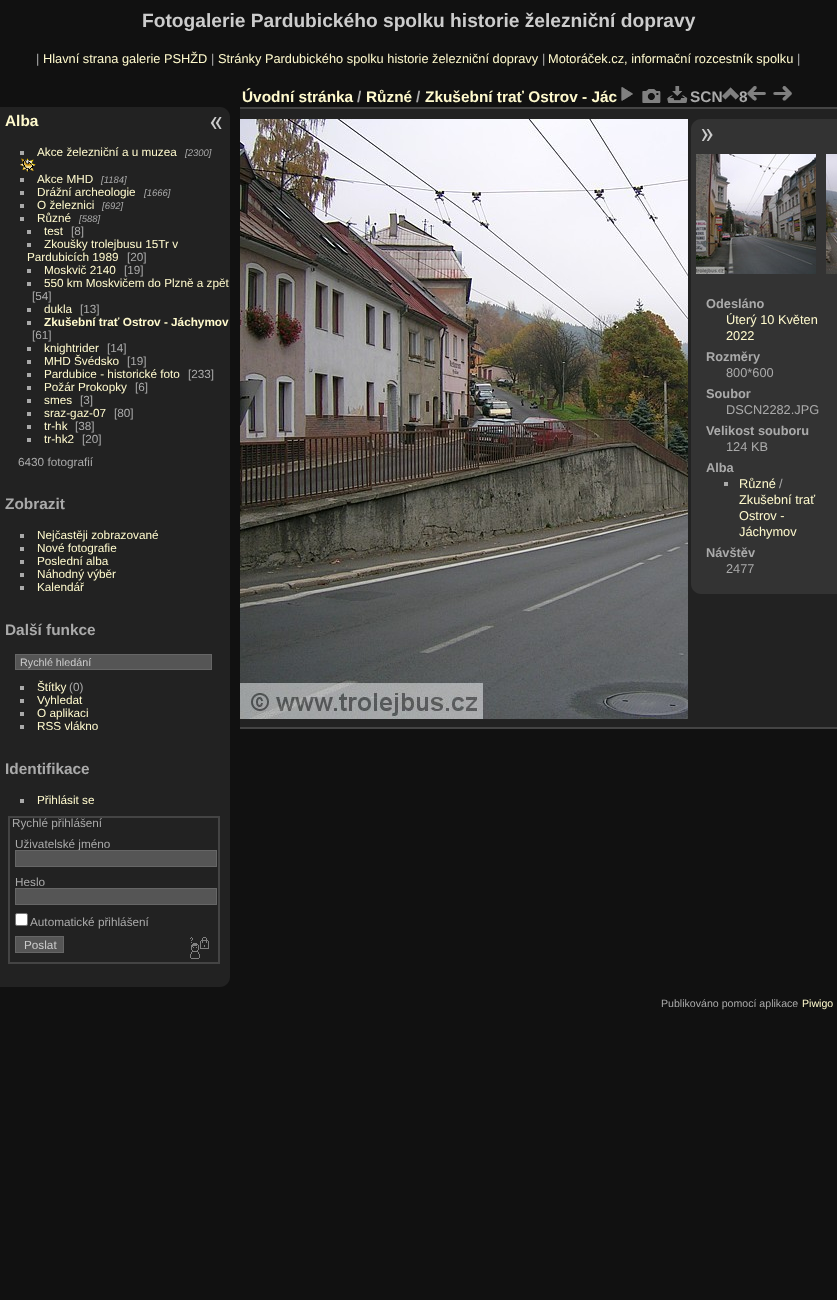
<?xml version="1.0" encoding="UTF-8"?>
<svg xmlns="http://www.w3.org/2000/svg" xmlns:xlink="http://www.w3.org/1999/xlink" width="837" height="1300">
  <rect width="100%" height="100%" fill="#111111" />
  <path d="M 0 107 h 220 c 5.5 0 10 4.5 10 10 v 860 c 0 5.5 -4.5 10 -10 10 h -220 z" fill="#222222" />
  <rect x="20" y="151" width="4" height="4" fill="#aaaaaa" />
  <image x="20" y="158" width="16" height="14" xlink:href="image1.png" />
  <rect x="20" y="178" width="4" height="4" fill="#aaaaaa" />
  <rect x="20" y="191" width="4" height="4" fill="#aaaaaa" />
  <rect x="20" y="204" width="4" height="4" fill="#aaaaaa" />
  <rect x="20" y="217" width="4" height="4" fill="#aaaaaa" />
  <rect x="27" y="230" width="4" height="4" fill="#aaaaaa" />
  <rect x="27" y="243" width="4" height="4" fill="#aaaaaa" />
  <rect x="27" y="269" width="4" height="4" fill="#aaaaaa" />
  <rect x="27" y="282" width="4" height="4" fill="#aaaaaa" />
  <rect x="27" y="308" width="4" height="4" fill="#aaaaaa" />
  <rect x="27" y="321" width="4" height="4" fill="#aaaaaa" />
  <rect x="27" y="347" width="4" height="4" fill="#aaaaaa" />
  <rect x="27" y="360" width="4" height="4" fill="#aaaaaa" />
  <rect x="27" y="373" width="4" height="4" fill="#aaaaaa" />
  <rect x="27" y="386" width="4" height="4" fill="#aaaaaa" />
  <rect x="27" y="399" width="4" height="4" fill="#aaaaaa" />
  <rect x="27" y="412" width="4" height="4" fill="#aaaaaa" />
  <rect x="27" y="425" width="4" height="4" fill="#aaaaaa" />
  <rect x="27" y="438" width="4" height="4" fill="#aaaaaa" />
  <rect x="20" y="534" width="4" height="4" fill="#aaaaaa" />
  <rect x="20" y="547" width="4" height="4" fill="#aaaaaa" />
  <rect x="20" y="560" width="4" height="4" fill="#aaaaaa" />
  <rect x="20" y="573" width="4" height="4" fill="#aaaaaa" />
  <rect x="20" y="586" width="4" height="4" fill="#aaaaaa" />
  <rect x="15.5" y="654.5" width="196" height="15" fill="#555555" stroke="#666666" />
  <rect x="20" y="686" width="4" height="4" fill="#aaaaaa" />
  <rect x="20" y="699" width="4" height="4" fill="#aaaaaa" />
  <rect x="20" y="712" width="4" height="4" fill="#aaaaaa" />
  <rect x="20" y="725" width="4" height="4" fill="#aaaaaa" />
  <rect x="20" y="799" width="4" height="4" fill="#aaaaaa" />
  <rect x="9" y="817" width="210" height="146" fill="none" stroke="#444444" stroke-width="2" />
  <rect x="15.5" y="888.5" width="201" height="16" fill="#555555" stroke="#666666" />
  <rect x="15.5" y="913.5" width="12" height="12" rx="1.5" fill="#ffffff" stroke="#767676" />
  <rect x="15.5" y="936.5" width="48" height="16" fill="#555555" stroke="#666666" />
  <image x="190" y="937" width="19" height="22" xlink:href="image2.png" />
  <rect x="240" y="109" width="597" height="618" fill="#222222" />
  <rect x="240" y="727" width="597" height="2" fill="#444444" />
  <image x="621" y="87" width="12" height="14" xlink:href="image3.png" />
  <image x="642" y="89" width="19" height="14" xlink:href="image4.png" />
  <image x="667" y="86" width="21" height="17" xlink:href="image5.png" />
  <image x="722" y="87" width="17" height="13" xlink:href="image6.png" />
  <image x="773" y="86" width="19" height="15" xlink:href="image8.png" />
  <rect x="240" y="107" width="597" height="2" fill="#444444" />
  <image x="240" y="119" width="448" height="600" xlink:href="image9.png" />
  <path d="M 701 119 h 136 v 475 h -136 c -5.5 0 -10 -4.5 -10 -10 v -455 c 0 -5.5 4.5 -10 10 -10 z" fill="#333333" />
  <image x="701" y="129" width="12" height="12" xlink:href="image10.png" />
  <image x="696" y="154" width="120" height="120" xlink:href="image11.png" />
  <image x="826" y="154" width="11" height="120" xlink:href="image12.png" />
  <rect x="724" y="482" width="4" height="4" fill="#aaaaaa" />
  <image x="210" y="117" width="12" height="12" xlink:href="image13.png" />
  <text x="142" y="27" style="font-family: Liberation Sans; font-size: 19.2px; font-weight: bold; fill: #cccccc">Fotogalerie Pardubického spolku historie železniční dopravy</text>
  <text x="36" y="63" style="font-family: Liberation Sans; font-size: 12.8px; fill: #aaaaaa">|</text>
  <text x="43" y="63" style="font-family: Liberation Sans; font-size: 12.8px; fill: #fffacd">Hlavní strana galerie PSHŽD</text>
  <text x="211" y="63" style="font-family: Liberation Sans; font-size: 12.8px; fill: #aaaaaa">|</text>
  <text x="218" y="63" style="font-family: Liberation Sans; font-size: 12.8px; fill: #fffacd">Stránky Pardubického spolku historie železniční dopravy</text>
  <text x="542" y="63" style="font-family: Liberation Sans; font-size: 12.8px; fill: #aaaaaa">|</text>
  <text x="548" y="63" style="font-family: Liberation Sans; font-size: 12.8px; fill: #fffacd">Motoráček.cz, informační rozcestník spolku</text>
  <text x="797" y="63" style="font-family: Liberation Sans; font-size: 12.8px; fill: #aaaaaa">|</text>
  <text x="5" y="126" style="font-family: Liberation Sans; font-size: 15.4px; font-weight: bold; fill: #fffacd">Alba</text>
  <text x="37" y="156" style="font-family: Liberation Sans; font-size: 11.75px; fill: #fffacd">Akce železniční a u muzea</text>
  <text x="185" y="156" style="font-family: Liberation Sans; font-size: 9.5px; font-style: italic; fill: #aaaaaa">[2300]</text>
  <text x="37" y="183" style="font-family: Liberation Sans; font-size: 11.75px; fill: #fffacd">Akce MHD</text>
  <text x="101" y="183" style="font-family: Liberation Sans; font-size: 9.5px; font-style: italic; fill: #aaaaaa">[1184]</text>
  <text x="37" y="196" style="font-family: Liberation Sans; font-size: 11.75px; fill: #fffacd">Drážní archeologie</text>
  <text x="144" y="196" style="font-family: Liberation Sans; font-size: 9.5px; font-style: italic; fill: #aaaaaa">[1666]</text>
  <text x="37" y="209" style="font-family: Liberation Sans; font-size: 11.75px; fill: #fffacd">O železnici</text>
  <text x="102" y="209" style="font-family: Liberation Sans; font-size: 9.5px; font-style: italic; fill: #aaaaaa">[692]</text>
  <text x="37" y="222" style="font-family: Liberation Sans; font-size: 11.75px; fill: #fffacd">Různé</text>
  <text x="79" y="222" style="font-family: Liberation Sans; font-size: 9.5px; font-style: italic; fill: #aaaaaa">[588]</text>
  <text x="44" y="235" style="font-family: Liberation Sans; font-size: 11.75px; fill: #fffacd">test</text>
  <text x="71" y="235" style="font-family: Liberation Sans; font-size: 11.75px; fill: #aaaaaa">[8]</text>
  <text x="44" y="248" style="font-family: Liberation Sans; font-size: 11.75px; fill: #fffacd">Zkoušky trolejbusu 15Tr v</text>
  <text x="27" y="261" style="font-family: Liberation Sans; font-size: 11.75px; fill: #fffacd">Pardubicích 1989</text>
  <text x="127" y="261" style="font-family: Liberation Sans; font-size: 11.75px; fill: #aaaaaa">[20]</text>
  <text x="44" y="274" style="font-family: Liberation Sans; font-size: 11.75px; fill: #fffacd">Moskvič 2140</text>
  <text x="124" y="274" style="font-family: Liberation Sans; font-size: 11.75px; fill: #aaaaaa">[19]</text>
  <text x="44" y="287" style="font-family: Liberation Sans; font-size: 11.75px; fill: #fffacd">550 km Moskvičem do Plzně a zpět</text>
  <text x="32" y="300" style="font-family: Liberation Sans; font-size: 11.75px; fill: #aaaaaa">[54]</text>
  <text x="44" y="313" style="font-family: Liberation Sans; font-size: 11.75px; fill: #fffacd">dukla</text>
  <text x="80" y="313" style="font-family: Liberation Sans; font-size: 11.75px; fill: #aaaaaa">[13]</text>
  <text x="44" y="326" style="font-family: Liberation Sans; font-size: 11.75px; font-weight: bold; fill: #fffacd">Zkušební trať Ostrov - Jáchymov</text>
  <text x="32" y="339" style="font-family: Liberation Sans; font-size: 11.75px; fill: #aaaaaa">[61]</text>
  <text x="44" y="352" style="font-family: Liberation Sans; font-size: 11.75px; fill: #fffacd">knightrider</text>
  <text x="107" y="352" style="font-family: Liberation Sans; font-size: 11.75px; fill: #aaaaaa">[14]</text>
  <text x="44" y="365" style="font-family: Liberation Sans; font-size: 11.75px; fill: #fffacd">MHD Švédsko</text>
  <text x="127" y="365" style="font-family: Liberation Sans; font-size: 11.75px; fill: #aaaaaa">[19]</text>
  <text x="44" y="378" style="font-family: Liberation Sans; font-size: 11.75px; fill: #fffacd">Pardubice - historické foto</text>
  <text x="188" y="378" style="font-family: Liberation Sans; font-size: 11.75px; fill: #aaaaaa">[233]</text>
  <text x="44" y="391" style="font-family: Liberation Sans; font-size: 11.75px; fill: #fffacd">Požár Prokopky</text>
  <text x="135" y="391" style="font-family: Liberation Sans; font-size: 11.75px; fill: #aaaaaa">[6]</text>
  <text x="44" y="404" style="font-family: Liberation Sans; font-size: 11.75px; fill: #fffacd">smes</text>
  <text x="80" y="404" style="font-family: Liberation Sans; font-size: 11.75px; fill: #aaaaaa">[3]</text>
  <text x="44" y="417" style="font-family: Liberation Sans; font-size: 11.75px; fill: #fffacd">sraz-gaz-07</text>
  <text x="114" y="417" style="font-family: Liberation Sans; font-size: 11.75px; fill: #aaaaaa">[80]</text>
  <text x="44" y="430" style="font-family: Liberation Sans; font-size: 11.75px; fill: #fffacd">tr-hk</text>
  <text x="75" y="430" style="font-family: Liberation Sans; font-size: 11.75px; fill: #aaaaaa">[38]</text>
  <text x="44" y="443" style="font-family: Liberation Sans; font-size: 11.75px; fill: #fffacd">tr-hk2</text>
  <text x="82" y="443" style="font-family: Liberation Sans; font-size: 11.75px; fill: #aaaaaa">[20]</text>
  <text x="18" y="466" style="font-family: Liberation Sans; font-size: 11.75px; fill: #aaaaaa">6430 fotografií</text>
  <text x="5" y="509" style="font-family: Liberation Sans; font-size: 15.4px; font-weight: bold; fill: #aaaaaa">Zobrazit</text>
  <text x="37" y="539" style="font-family: Liberation Sans; font-size: 11.75px; fill: #fffacd">Nejčastěji zobrazované</text>
  <text x="37" y="552" style="font-family: Liberation Sans; font-size: 11.75px; fill: #fffacd">Nové fotografie</text>
  <text x="37" y="565" style="font-family: Liberation Sans; font-size: 11.75px; fill: #fffacd">Poslední alba</text>
  <text x="37" y="578" style="font-family: Liberation Sans; font-size: 11.75px; fill: #fffacd">Náhodný výběr</text>
  <text x="37" y="591" style="font-family: Liberation Sans; font-size: 11.75px; fill: #fffacd">Kalendář</text>
  <text x="5" y="635" style="font-family: Liberation Sans; font-size: 15.4px; font-weight: bold; fill: #aaaaaa">Další funkce</text>
  <text x="20" y="666" style="font-family: Liberation Sans; font-size: 10.75px; fill: #cccccc">Rychlé hledání</text>
  <text x="37" y="691" style="font-family: Liberation Sans; font-size: 11.75px; fill: #fffacd">Štítky</text>
  <text x="69" y="691" style="font-family: Liberation Sans; font-size: 11.75px; fill: #aaaaaa">(0)</text>
  <text x="37" y="704" style="font-family: Liberation Sans; font-size: 11.75px; fill: #fffacd">Vyhledat</text>
  <text x="37" y="717" style="font-family: Liberation Sans; font-size: 11.75px; fill: #fffacd">O aplikaci</text>
  <text x="37" y="730" style="font-family: Liberation Sans; font-size: 11.75px; fill: #fffacd">RSS vlákno</text>
  <text x="5" y="774" style="font-family: Liberation Sans; font-size: 15.4px; font-weight: bold; fill: #aaaaaa">Identifikace</text>
  <text x="37" y="804" style="font-family: Liberation Sans; font-size: 11.75px; fill: #fffacd">Přihlásit se</text>
  <text x="12" y="827" style="font-family: Liberation Sans; font-size: 11.75px; fill: #aaaaaa">Rychlé přihlášení</text>
  <text x="15" y="848" style="font-family: Liberation Sans; font-size: 11.75px; fill: #aaaaaa">Uživatelské jméno</text>
  <rect x="15.5" y="850.5" width="201" height="16" fill="#555555" stroke="#666666" />
  <text x="15" y="886" style="font-family: Liberation Sans; font-size: 11.75px; fill: #aaaaaa">Heslo</text>
  <text x="30" y="926" style="font-family: Liberation Sans; font-size: 11.75px; fill: #aaaaaa">Automatické přihlášení</text>
  <text x="24" y="949" style="font-family: Liberation Sans; font-size: 11.75px; fill: #cccccc">Poslat</text>
  <text x="242" y="102" style="font-family: Liberation Sans; font-size: 15.4px; font-weight: bold; fill: #fffacd">Úvodní stránka</text>
  <text x="357" y="102" style="font-family: Liberation Sans; font-size: 15.4px; font-weight: bold; fill: #aaaaaa">/</text>
  <text x="366" y="102" style="font-family: Liberation Sans; font-size: 15.4px; font-weight: bold; fill: #fffacd">Různé</text>
  <text x="416" y="102" style="font-family: Liberation Sans; font-size: 15.4px; font-weight: bold; fill: #aaaaaa">/</text>
  <text x="425" y="102" style="font-family: Liberation Sans; font-size: 15.4px; font-weight: bold; fill: #fffacd">Zkušební trať Ostrov - Jác</text>
  <text x="690" y="102" style="font-family: Liberation Sans; font-size: 15.4px; font-weight: bold; fill: #aaaaaa">SCN</text>
  <text x="739" y="102" style="font-family: Liberation Sans; font-size: 15.4px; font-weight: bold; fill: #aaaaaa">8</text>
  <image x="747" y="86" width="19" height="15" xlink:href="image7.png" />
  <text x="706" y="308" style="font-family: Liberation Sans; font-size: 12.8px; font-weight: bold; fill: #aaaaaa">Odesláno</text>
  <text x="726" y="324" style="font-family: Liberation Sans; font-size: 12.8px; fill: #fffacd">Úterý 10 Květen</text>
  <text x="726" y="340" style="font-family: Liberation Sans; font-size: 12.8px; fill: #fffacd">2022</text>
  <text x="706" y="361" style="font-family: Liberation Sans; font-size: 12.8px; font-weight: bold; fill: #aaaaaa">Rozměry</text>
  <text x="726" y="377" style="font-family: Liberation Sans; font-size: 12.8px; fill: #aaaaaa">800*600</text>
  <text x="706" y="398" style="font-family: Liberation Sans; font-size: 12.8px; font-weight: bold; fill: #aaaaaa">Soubor</text>
  <text x="726" y="414" style="font-family: Liberation Sans; font-size: 12.8px; fill: #aaaaaa">DSCN2282.JPG</text>
  <text x="706" y="435" style="font-family: Liberation Sans; font-size: 12.8px; font-weight: bold; fill: #aaaaaa">Velikost souboru</text>
  <text x="726" y="451" style="font-family: Liberation Sans; font-size: 12.8px; fill: #aaaaaa">124 KB</text>
  <text x="706" y="472" style="font-family: Liberation Sans; font-size: 12.8px; font-weight: bold; fill: #aaaaaa">Alba</text>
  <text x="739" y="488" style="font-family: Liberation Sans; font-size: 12.8px; fill: #fffacd">Různé</text>
  <text x="779" y="488" style="font-family: Liberation Sans; font-size: 12.8px; fill: #aaaaaa">/</text>
  <text x="739" y="504" style="font-family: Liberation Sans; font-size: 12.8px; fill: #fffacd">Zkušební trať</text>
  <text x="739" y="520" style="font-family: Liberation Sans; font-size: 12.8px; fill: #fffacd">Ostrov -</text>
  <text x="739" y="536" style="font-family: Liberation Sans; font-size: 12.8px; fill: #fffacd">Jáchymov</text>
  <text x="706" y="557" style="font-family: Liberation Sans; font-size: 12.8px; font-weight: bold; fill: #aaaaaa">Návštěv</text>
  <text x="726" y="573" style="font-family: Liberation Sans; font-size: 12.8px; fill: #aaaaaa">2477</text>
  <text x="661" y="1007" style="font-family: Liberation Sans; font-size: 10.6px; fill: #aaaaaa">Publikováno pomocí aplikace</text>
  <text x="802" y="1007" style="font-family: Liberation Sans; font-size: 10.6px; fill: #fffacd">Piwigo</text>
</svg>
